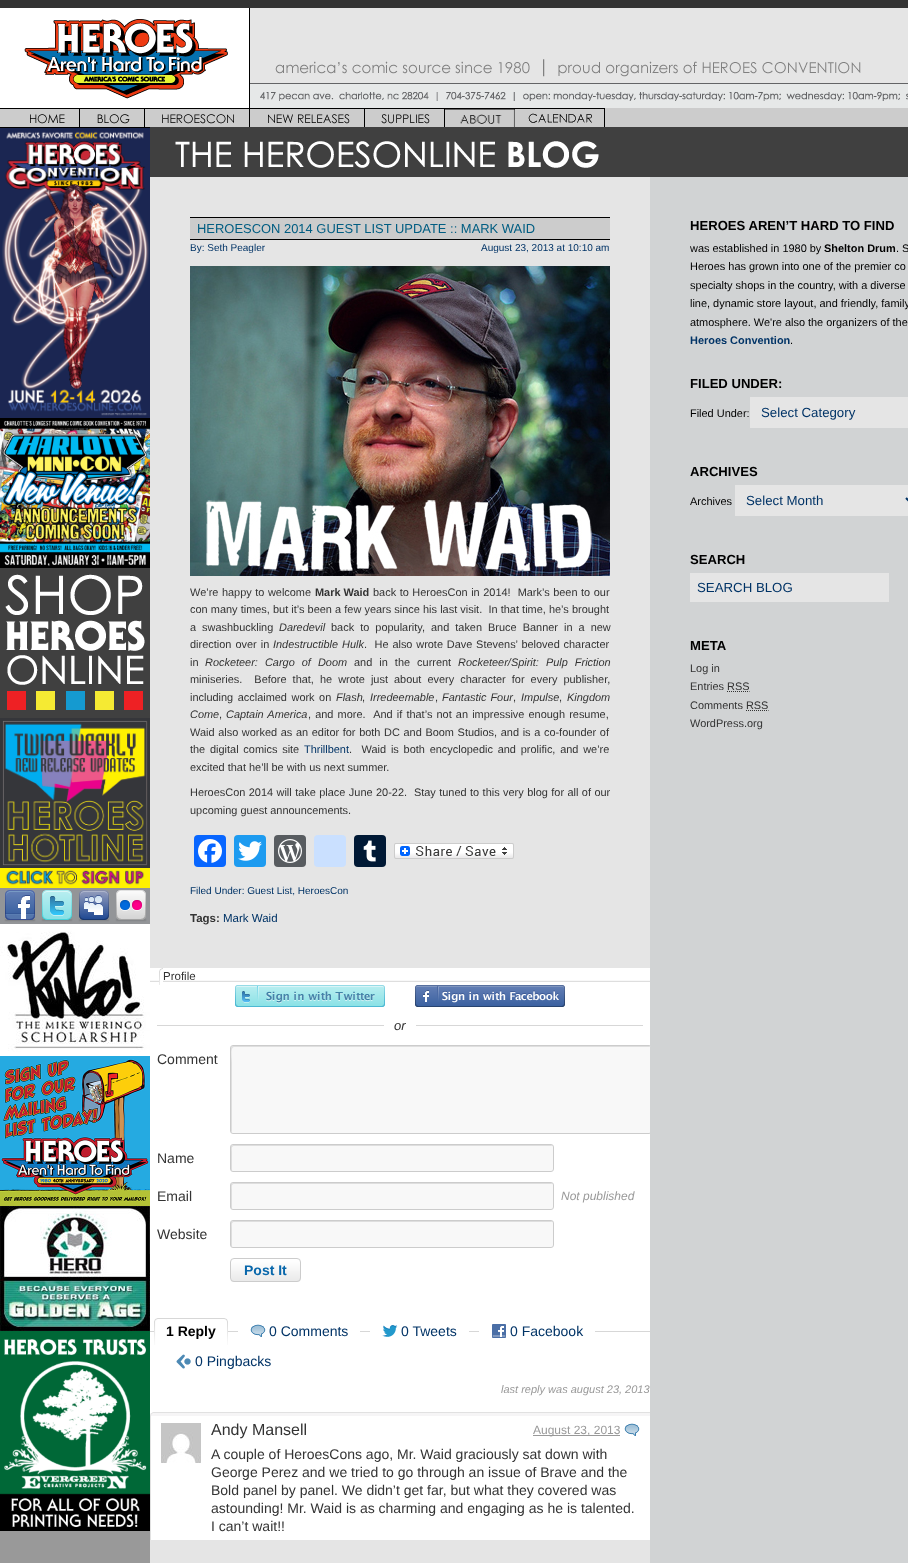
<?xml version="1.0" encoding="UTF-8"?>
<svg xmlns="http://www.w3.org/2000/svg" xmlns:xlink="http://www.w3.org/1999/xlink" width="908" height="1563">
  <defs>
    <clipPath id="clip1"><rect x="150" y="1045" width="500" height="89" /></clipPath>
  </defs>
  <rect width="100%" height="100%" fill="#333333" />
  <image x="0" y="8" width="250" height="100" xlink:href="image1.png" />
  <image x="250" y="8" width="658" height="75" xlink:href="image2.png" />
  <image x="250" y="83" width="658" height="25" xlink:href="image3.png" />
  <image x="0" y="108" width="80" height="20" xlink:href="image4.png" />
  <image x="80" y="108" width="65" height="20" xlink:href="image5.png" />
  <image x="145" y="108" width="105" height="20" xlink:href="image6.png" />
  <image x="250" y="108" width="115" height="19" xlink:href="image7.png" />
  <image x="365" y="108" width="80" height="19" xlink:href="image8.png" />
  <image x="445" y="108" width="70" height="19" xlink:href="image9.png" />
  <image x="515" y="108" width="90" height="19" xlink:href="image10.png" />
  <rect x="605" y="108" width="303" height="19" fill="#cccccc" />
  <rect x="650" y="177" width="258" height="1386" fill="#d1d3d4" />
  <rect y="502" width="150" height="1061" fill="#999999" />
  <image x="0" y="128" width="150" height="290" xlink:href="image11.png" />
  <image x="0" y="418" width="150" height="150" xlink:href="image12.png" />
  <image x="0" y="568" width="150" height="150" xlink:href="image13.png" />
  <image x="0" y="718" width="150" height="150" xlink:href="image14.png" />
  <image x="0" y="868" width="150" height="20" xlink:href="image15.png" />
  <image x="0" y="888" width="150" height="36" xlink:href="image16.png" />
  <image x="0" y="924" width="150" height="132" xlink:href="image17.png" />
  <image x="0" y="1056" width="150" height="150" xlink:href="image18.png" />
  <image x="0" y="1206" width="150" height="125" xlink:href="image19.png" />
  <image x="0" y="1331" width="150" height="200" xlink:href="image20.png" />
  <rect x="150" y="177" width="500" height="1386" fill="#e5e5e5" />
  <rect x="150" y="127" width="758" height="50" fill="#404040" />
  <image x="175" y="141" width="424" height="27" xlink:href="image21.png" />
  <rect x="190" y="218" width="420" height="21" fill="#cccccc" />
  <rect x="190" y="217" width="420" height="1" fill="#000000" />
  <rect x="190" y="239" width="420" height="1" fill="#000000" />
  <image x="190" y="266" width="420" height="310" xlink:href="image22.png" />
  <rect x="194" y="835" width="32" height="32" rx="4" fill="#0866ff" />
  <image x="198" y="839" width="24" height="24" xlink:href="image23.png" />
  <rect x="234" y="835" width="32" height="32" rx="4" fill="#1d9bf0" />
  <image x="238" y="841" width="24" height="20" xlink:href="image24.png" />
  <rect x="274" y="835" width="32" height="32" rx="4" fill="#585c60" />
  <image x="278" y="839" width="24" height="24" xlink:href="image25.png" />
  <rect x="314" y="835" width="32" height="32" rx="4" fill="#cae0ff" />
  <rect x="354" y="835" width="32" height="32" rx="4" fill="#001935" />
  <image x="363" y="840" width="13" height="22" xlink:href="image26.png" />
  <image x="394" y="843" width="120" height="16" xlink:href="image27.png" />
  <rect x="150" y="968" width="500" height="572" fill="#ffffff" />
  <image x="150" y="968" width="500" height="17" xlink:href="image28.png" />
  <image x="235" y="985" width="150" height="22" xlink:href="image29.png" />
  <image x="415" y="985" width="150" height="22" xlink:href="image30.png" />
  <rect x="157" y="1025" width="486" height="1" fill="#d7d7d7" />
  <rect x="384" y="1025" width="32" height="1" fill="#ffffff" />
  <g clip-path="url(#clip1)">
    <rect x="231" y="1046" width="420" height="87" rx="2" fill="#f8f8f8" />
  </g>
  <path d="M 234 1047 h 417 l -2 -1 h -416 c -4 0 -2 13 -2 16 v 69 l 1 2 v -70 c 0 -4 -2 -16 2 -16 z" fill="#dfdfdf" />
  <g clip-path="url(#clip1)">
    <rect x="230.5" y="1045.5" width="421" height="88" rx="2.5" fill="none" stroke="#cccccc" />
  </g>
  <rect x="231" y="1145" width="322" height="26" rx="2" fill="#f8f8f8" />
  <path d="M 234 1146 h 319 l -2 -1 h -318 l -2 1 v 24 l 1 1 v -19 c 0 -2 -1 -6 2 -6 z" fill="#000000" fill-opacity="0.1" />
  <rect x="230.5" y="1144.5" width="323" height="27" rx="2.5" fill="none" stroke="#cccccc" />
  <rect x="231" y="1183" width="322" height="26" rx="2" fill="#f8f8f8" />
  <path d="M 234 1184 h 319 l -2 -1 h -318 l -2 1 v 24 l 1 1 v -19 c 0 -2 -1 -6 2 -6 z" fill="#000000" fill-opacity="0.1" />
  <rect x="230.5" y="1182.5" width="323" height="27" rx="2.5" fill="none" stroke="#cccccc" />
  <rect x="231" y="1221" width="322" height="26" rx="2" fill="#f8f8f8" />
  <path d="M 234 1222 h 319 l -2 -1 h -318 l -2 1 v 24 l 1 1 v -19 c 0 -2 -1 -6 2 -6 z" fill="#000000" fill-opacity="0.1" />
  <rect x="230.5" y="1220.5" width="323" height="27" rx="2.5" fill="none" stroke="#cccccc" />
  <image x="231" y="1259" width="70" height="23" xlink:href="image31.png" />
  <rect x="230.5" y="1258.5" width="70" height="23" rx="3.5" fill="none" stroke="#cccccc" />
  <rect x="150" y="1331" width="500" height="1" fill="#d7d7d7" />
  <image x="154" y="1318" width="4" height="27" xlink:href="image32.png" />
  <image x="158" y="1318" width="70" height="27" xlink:href="image33.png" />
  <rect x="238" y="1331" width="122" height="1" fill="#ffffff" />
  <image x="250" y="1324" width="16" height="13" xlink:href="image34.png" />
  <rect x="370" y="1331" width="99" height="1" fill="#ffffff" />
  <image x="382" y="1325" width="16" height="12" xlink:href="image35.png" />
  <rect x="479" y="1331" width="116" height="1" fill="#ffffff" />
  <image x="492" y="1324" width="14" height="14" xlink:href="image36.png" />
  <image x="176" y="1354" width="15" height="15" xlink:href="image37.png" />
  <rect x="150" y="1413" width="500" height="3" fill="#f6f5f6" />
  <path d="M 154 1412 h 496 v 128 h -500 v -124 c 0 -2 2 -4 4 -4 z m 0 1 h 496 v 127 h -499 v -124 c 0 -2 1 -3 3 -3 z" fill="#e1e1e1" fill-rule="evenodd" />
  <image x="161" y="1423" width="40" height="40" xlink:href="image38.png" />
  <image x="624" y="1423" width="16" height="13" xlink:href="image34.png" />
  <rect x="533" y="1435" width="87" height="1" fill="#999999" />
  <rect x="750" y="397" width="158" height="31" fill="#e5e5e5" />
  <rect x="735" y="485" width="173" height="31" fill="#e5e5e5" />
  <path d="M 906 498 l 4 4 l 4 -4" fill="none" stroke="#003366" stroke-width="2" />
  <rect x="690" y="573" width="199" height="29" fill="#e5e5e5" />
  <path d="M 727 691.5 h 22.5" fill="none" stroke="#333333" stroke-dasharray="1 1" />
  <path d="M 746 710.5 h 22.5" fill="none" stroke="#333333" stroke-dasharray="1 1" />
  <text x="197" y="233" style="font-family: Liberation Sans; font-size: 12.95px; fill: #015d82">HEROESCON 2014 GUEST LIST UPDATE :: MARK WAID</text>
  <text x="190" y="251" style="font-family: Liberation Sans; font-size: 10px; fill: #003366">By: Seth Peagler</text>
  <text x="481" y="251" style="font-family: Liberation Sans; font-size: 10px; fill: #003366">August 23, 2013 at 10:10 am</text>
  <text x="190" y="596" word-spacing="0.5" style="font-family: Liberation Sans; font-size: 10.95px; fill: #333333">We’re happy to welcome</text>
  <text x="315" y="596" style="font-family: Liberation Sans; font-size: 10.95px; font-weight: bold; fill: #333333">Mark Waid</text>
  <text x="373" y="596" word-spacing="0.5" style="font-family: Liberation Sans; font-size: 10.95px; fill: #333333" xml:space="preserve">back to HeroesCon in 2014!  Mark’s been to our</text>
  <text x="190" y="613" word-spacing="0.1" style="font-family: Liberation Sans; font-size: 10.95px; fill: #333333" xml:space="preserve">con many times, but it’s been a few years since his last visit.  In that time, he’s brought</text>
  <text x="190" y="631" word-spacing="3" style="font-family: Liberation Sans; font-size: 10.95px; fill: #333333">a swashbuckling</text>
  <text x="279" y="631" style="font-family: Liberation Sans; font-size: 10.95px; font-style: italic; fill: #333333">Daredevil</text>
  <text x="331" y="631" word-spacing="3" style="font-family: Liberation Sans; font-size: 10.95px; fill: #333333">back to popularity, and taken Bruce Banner in a new</text>
  <text x="190" y="648" word-spacing="1" style="font-family: Liberation Sans; font-size: 10.95px; fill: #333333">direction over in</text>
  <text x="273" y="648" word-spacing="1" style="font-family: Liberation Sans; font-size: 10.95px; font-style: italic; fill: #333333">Indestructible Hulk</text>
  <text x="364" y="648" word-spacing="0.75" style="font-family: Liberation Sans; font-size: 10.95px; fill: #333333" xml:space="preserve">.  He also wrote Dave Stevens’ beloved character</text>
  <text x="190" y="666" style="font-family: Liberation Sans; font-size: 10.95px; fill: #333333">in</text>
  <text x="205" y="666" word-spacing="4" style="font-family: Liberation Sans; font-size: 10.95px; font-style: italic; fill: #333333">Rocketeer: Cargo of Doom</text>
  <text x="354" y="666" word-spacing="4" style="font-family: Liberation Sans; font-size: 10.95px; fill: #333333">and in the current</text>
  <text x="458" y="666" word-spacing="4" style="font-family: Liberation Sans; font-size: 10.95px; font-style: italic; fill: #333333">Rocketeer/Spirit: Pulp Friction</text>
  <text x="190" y="683" word-spacing="3" style="font-family: Liberation Sans; font-size: 10.95px; fill: #333333" xml:space="preserve">miniseries.  Before that, he wrote just about every character for every publisher,</text>
  <text x="190" y="701" word-spacing="1.5" style="font-family: Liberation Sans; font-size: 10.95px; fill: #333333">including acclaimed work on</text>
  <text x="336" y="701" style="font-family: Liberation Sans; font-size: 10.95px; font-style: italic; fill: #333333">Flash</text>
  <text x="362" y="701" style="font-family: Liberation Sans; font-size: 10.95px; fill: #333333">,</text>
  <text x="370" y="701" style="font-family: Liberation Sans; font-size: 10.95px; font-style: italic; fill: #333333">Irredeemable</text>
  <text x="435" y="701" style="font-family: Liberation Sans; font-size: 10.95px; fill: #333333">,</text>
  <text x="442" y="701" word-spacing="1" style="font-family: Liberation Sans; font-size: 10.95px; font-style: italic; fill: #333333">Fantastic Four</text>
  <text x="513" y="701" style="font-family: Liberation Sans; font-size: 10.95px; fill: #333333">,</text>
  <text x="521" y="701" style="font-family: Liberation Sans; font-size: 10.95px; font-style: italic; fill: #333333">Impulse</text>
  <text x="559" y="701" style="font-family: Liberation Sans; font-size: 10.95px; fill: #333333">,</text>
  <text x="567" y="701" style="font-family: Liberation Sans; font-size: 10.95px; font-style: italic; fill: #333333">Kingdom</text>
  <text x="190" y="718" style="font-family: Liberation Sans; font-size: 10.95px; font-style: italic; fill: #333333">Come</text>
  <text x="219" y="718" style="font-family: Liberation Sans; font-size: 10.95px; fill: #333333">,</text>
  <text x="226" y="718" word-spacing="1" style="font-family: Liberation Sans; font-size: 10.95px; font-style: italic; fill: #333333">Captain America</text>
  <text x="308" y="718" word-spacing="1.1" style="font-family: Liberation Sans; font-size: 10.95px; fill: #333333" xml:space="preserve">, and more.  And if that’s not an impressive enough resume,</text>
  <text x="190" y="736" word-spacing="0.6" style="font-family: Liberation Sans; font-size: 10.95px; fill: #333333">Waid also worked as an editor for both DC and Boom Studios, and is a co-founder of</text>
  <text x="190" y="753" word-spacing="1.75" style="font-family: Liberation Sans; font-size: 10.95px; fill: #333333">the digital comics site</text>
  <text x="304" y="753" style="font-family: Liberation Sans; font-size: 10.95px; fill: #003366">Thrillbent</text>
  <text x="349" y="753" word-spacing="1.75" style="font-family: Liberation Sans; font-size: 10.95px; fill: #333333" xml:space="preserve">.  Waid is both encyclopedic and prolific, and we’re</text>
  <text x="190" y="771" style="font-family: Liberation Sans; font-size: 10.95px; fill: #333333">excited that he’ll be with us next summer.</text>
  <text x="190" y="796" word-spacing="0.4" style="font-family: Liberation Sans; font-size: 10.95px; fill: #333333" xml:space="preserve">HeroesCon 2014 will take place June 20-22.  Stay tuned to this very blog for all of our</text>
  <text x="190" y="814" style="font-family: Liberation Sans; font-size: 10.95px; fill: #333333">upcoming guest announcements.</text>
  <text x="190" y="894" style="font-family: Liberation Sans; font-size: 10px; fill: #003366">Filed Under: Guest List, HeroesCon</text>
  <text x="190" y="922" style="font-family: Liberation Sans; font-size: 11.5px; font-weight: bold; fill: #333333">Tags:</text>
  <text x="223" y="922" style="font-family: Liberation Sans; font-size: 11.5px; fill: #003366">Mark Waid</text>
  <text x="163" y="980" style="font-family: Liberation Sans; font-size: 11.5px; fill: #333333">Profile</text>
  <text x="394" y="1030" style="font-family: Liberation Sans; font-size: 13px; font-style: italic; fill: #333333">or</text>
  <text x="157" y="1064" style="font-family: Liberation Sans; font-size: 14px; fill: #333333">Comment</text>
  <text x="157" y="1163" style="font-family: Liberation Sans; font-size: 14px; fill: #333333">Name</text>
  <text x="157" y="1201" style="font-family: Liberation Sans; font-size: 14px; fill: #333333">Email</text>
  <text x="561" y="1200" style="font-family: Liberation Sans; font-size: 12px; font-style: italic; fill: #999999">Not published</text>
  <text x="157" y="1239" style="font-family: Liberation Sans; font-size: 14px; fill: #333333">Website</text>
  <text x="244" y="1275" style="font-family: Liberation Sans; font-size: 14px; font-weight: bold; fill: #0867ab">Post It</text>
  <text x="166" y="1336" style="font-family: Liberation Sans; font-size: 14px; font-weight: bold; fill: #000000">1 Reply</text>
  <text x="269" y="1336" style="font-family: Liberation Sans; font-size: 14px; fill: #003366">0 Comments</text>
  <text x="401" y="1336" style="font-family: Liberation Sans; font-size: 14px; fill: #003366">0 Tweets</text>
  <text x="510" y="1336" style="font-family: Liberation Sans; font-size: 14px; fill: #003366">0 Facebook</text>
  <text x="195" y="1366" style="font-family: Liberation Sans; font-size: 14px; fill: #003366">0 Pingbacks</text>
  <text x="501" y="1393" style="font-family: Liberation Sans; font-size: 11px; font-style: italic; fill: #999999">last reply was august 23, 2013</text>
  <text x="211" y="1435" style="font-family: Liberation Sans; font-size: 16px; fill: #333333">Andy Mansell</text>
  <text x="533" y="1434" style="font-family: Liberation Sans; font-size: 12px; fill: #999999">August 23, 2013</text>
  <text x="211" y="1459" style="font-family: Liberation Sans; font-size: 14px; fill: #333333">A couple of HeroesCons ago, Mr. Waid graciously sat down with</text>
  <text x="211" y="1477" style="font-family: Liberation Sans; font-size: 14px; fill: #333333">George Perez and we tried to go through an issue of Brave and the</text>
  <text x="211" y="1495" style="font-family: Liberation Sans; font-size: 14px; fill: #333333">Bold panel by panel. We didn’t get far, but what they covered was</text>
  <text x="211" y="1513" style="font-family: Liberation Sans; font-size: 14px; fill: #333333">astounding! Mr. Waid is as charming and engaging as he is talented.</text>
  <text x="211" y="1531" style="font-family: Liberation Sans; font-size: 14px; fill: #333333">I can’t wait!!</text>
  <text x="690" y="230" style="font-family: Liberation Sans; font-size: 13.1px; font-weight: bold; fill: #000000">HEROES AREN’T HARD TO FIND</text>
  <text x="690" y="252" style="font-family: Liberation Sans; font-size: 10.95px; fill: #000000">was established in 1980 by</text>
  <text x="824" y="252" style="font-family: Liberation Sans; font-size: 10.95px; font-weight: bold; fill: #000000">Shelton Drum</text>
  <text x="896" y="252" style="font-family: Liberation Sans; font-size: 10.95px; fill: #000000">. S</text>
  <text x="690" y="270" style="font-family: Liberation Sans; font-size: 10.95px; fill: #000000">Heroes has grown into one of the premier co</text>
  <text x="690" y="289" style="font-family: Liberation Sans; font-size: 10.95px; fill: #000000">specialty shops in the country, with a diverse</text>
  <text x="690" y="307" style="font-family: Liberation Sans; font-size: 10.95px; fill: #000000">line, dynamic store layout, and friendly, family</text>
  <text x="690" y="326" style="font-family: Liberation Sans; font-size: 10.95px; fill: #000000">atmosphere. We're also the organizers of the</text>
  <text x="690" y="344" style="font-family: Liberation Sans; font-size: 10.95px; font-weight: bold; fill: #003366">Heroes Convention</text>
  <text x="790" y="344" style="font-family: Liberation Sans; font-size: 10.95px; fill: #000000">.</text>
  <text x="690" y="388" style="font-family: Liberation Sans; font-size: 13.1px; font-weight: bold; fill: #000000">FILED UNDER:</text>
  <text x="690" y="417" style="font-family: Liberation Sans; font-size: 10.95px; fill: #000000">Filed Under:</text>
  <text x="761" y="417" style="font-family: Liberation Sans; font-size: 13.25px; fill: #003366">Select Category</text>
  <text x="690" y="476" style="font-family: Liberation Sans; font-size: 13.1px; font-weight: bold; fill: #000000">ARCHIVES</text>
  <text x="690" y="505" style="font-family: Liberation Sans; font-size: 10.95px; fill: #000000">Archives</text>
  <text x="746" y="505" style="font-family: Liberation Sans; font-size: 13.25px; fill: #003366">Select Month</text>
  <text x="690" y="564" style="font-family: Liberation Sans; font-size: 13.1px; font-weight: bold; fill: #000000">SEARCH</text>
  <text x="697" y="592" style="font-family: Liberation Sans; font-size: 13.25px; fill: #003366">SEARCH BLOG</text>
  <text x="690" y="650" style="font-family: Liberation Sans; font-size: 13.1px; font-weight: bold; fill: #000000">META</text>
  <text x="690" y="672" style="font-family: Liberation Sans; font-size: 10.95px; fill: #333333">Log in</text>
  <text x="690" y="690" style="font-family: Liberation Sans; font-size: 10.95px; fill: #333333">Entries RSS</text>
  <text x="690" y="709" style="font-family: Liberation Sans; font-size: 10.95px; fill: #333333">Comments RSS</text>
  <text x="690" y="727" style="font-family: Liberation Sans; font-size: 10.95px; fill: #333333">WordPress.org</text>
</svg>
